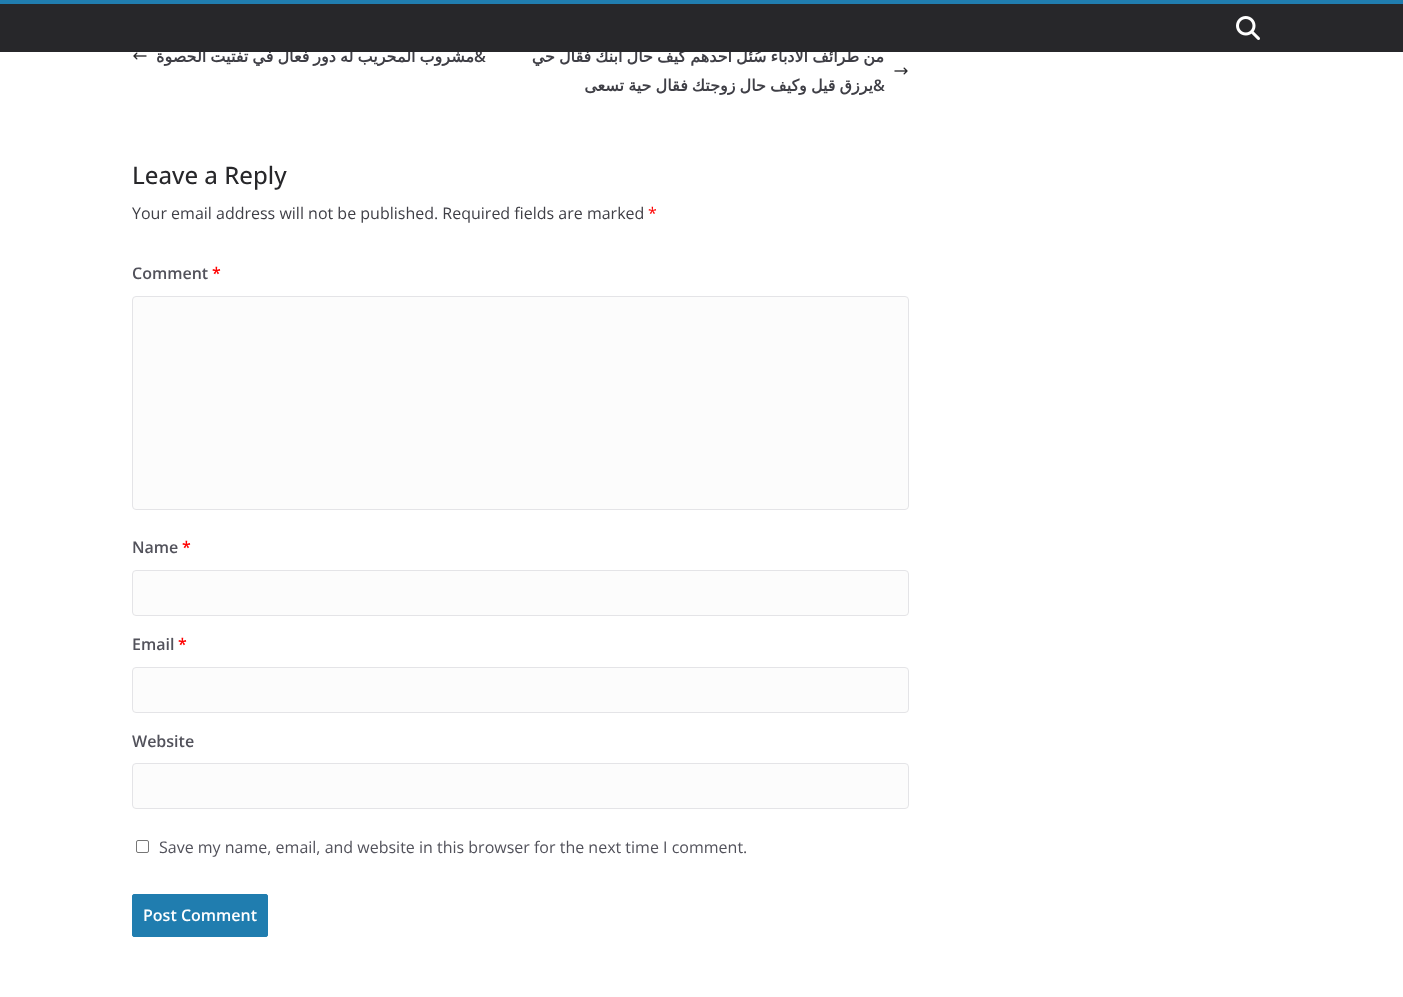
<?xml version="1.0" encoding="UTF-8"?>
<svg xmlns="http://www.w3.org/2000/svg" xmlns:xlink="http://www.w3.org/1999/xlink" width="1403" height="997">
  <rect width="100%" height="100%" fill="#ffffff" />
  <rect width="1403" height="4" fill="#207daf" />
  <image x="133" y="52" width="14" height="8" xlink:href="image2.png" />
  <image x="894" y="67" width="14" height="8" xlink:href="image3.png" />
  <rect x="132.5" y="296.5" width="776" height="213" rx="3.5" fill="#fcfcfc" stroke="#e4e4e7" />
  <rect x="132.5" y="570.5" width="776" height="45" rx="3.5" fill="#fcfcfc" stroke="#e4e4e7" />
  <rect x="132.5" y="667.5" width="776" height="45" rx="3.5" fill="#fcfcfc" stroke="#e4e4e7" />
  <rect x="132.5" y="763.5" width="776" height="45" rx="3.5" fill="#fcfcfc" stroke="#e4e4e7" />
  <rect x="136.5" y="840.5" width="12" height="12" rx="1.5" fill="none" stroke="#767676" />
  <rect x="132.5" y="894.5" width="135" height="42" rx="1.5" fill="#207daf" stroke="#207daf" />
  <text x="474" y="62" word-spacing="-1" style="font-family: DejaVu Sans; font-size: 16px; font-weight: bold; direction: rtl; fill: #3f3f46">مشروب المحريب له دور فعال في تفتيت الحصوة</text>
  <text x="474" y="62" style="font-family: Open Sans; font-size: 16px; font-weight: 600; fill: #3f3f46">&amp;</text>
  <text x="884" y="62" word-spacing="-1" style="font-family: DejaVu Sans; font-size: 16px; font-weight: bold; direction: rtl; fill: #3f3f46">من طرائف الأدباء سُئل أحدهم كيف حال ابنك فقال حي</text>
  <rect y="4" width="1403" height="48" fill="#27272a" />
  <image x="1236" y="16" width="24" height="24" xlink:href="image1.png" />
  <text x="873" y="91" word-spacing="-1" style="font-family: DejaVu Sans; font-size: 16px; font-weight: bold; direction: rtl; fill: #3f3f46">يرزق قيل وكيف حال زوجتك فقال حية تسعى</text>
  <text x="873" y="91" style="font-family: Open Sans; font-size: 16px; font-weight: 600; fill: #3f3f46">&amp;</text>
  <text x="132" y="184" style="font-family: Open Sans; font-size: 24px; font-weight: 500; fill: #27272a">Leave a Reply</text>
  <text x="132" y="219" style="font-family: Open Sans; font-size: 16px; fill: #3f3f46">Your email address will not be published. Required fields are marked</text>
  <text x="648" y="219" style="font-family: Open Sans; font-size: 16px; fill: #ff0000">*</text>
  <text x="132" y="279" style="font-family: Open Sans; font-size: 16px; font-weight: 600; fill: #52525b">Comment</text>
  <text x="212" y="279" style="font-family: Open Sans; font-size: 16px; font-weight: 600; fill: #ff0000">*</text>
  <text x="132" y="553" style="font-family: Open Sans; font-size: 16px; font-weight: 600; fill: #52525b">Name</text>
  <text x="182" y="553" style="font-family: Open Sans; font-size: 16px; font-weight: 600; fill: #ff0000">*</text>
  <text x="132" y="650" style="font-family: Open Sans; font-size: 16px; font-weight: 600; fill: #52525b">Email</text>
  <text x="178" y="650" style="font-family: Open Sans; font-size: 16px; font-weight: 600; fill: #ff0000">*</text>
  <text x="132" y="747" style="font-family: Open Sans; font-size: 16px; font-weight: 600; fill: #52525b">Website</text>
  <text x="159" y="853" style="font-family: Open Sans; font-size: 16px; fill: #52525b">Save my name, email, and website in this browser for the next time I comment.</text>
  <text x="143" y="921" style="font-family: Open Sans; font-size: 16px; font-weight: 600; fill: #ffffff">Post Comment</text>
</svg>
